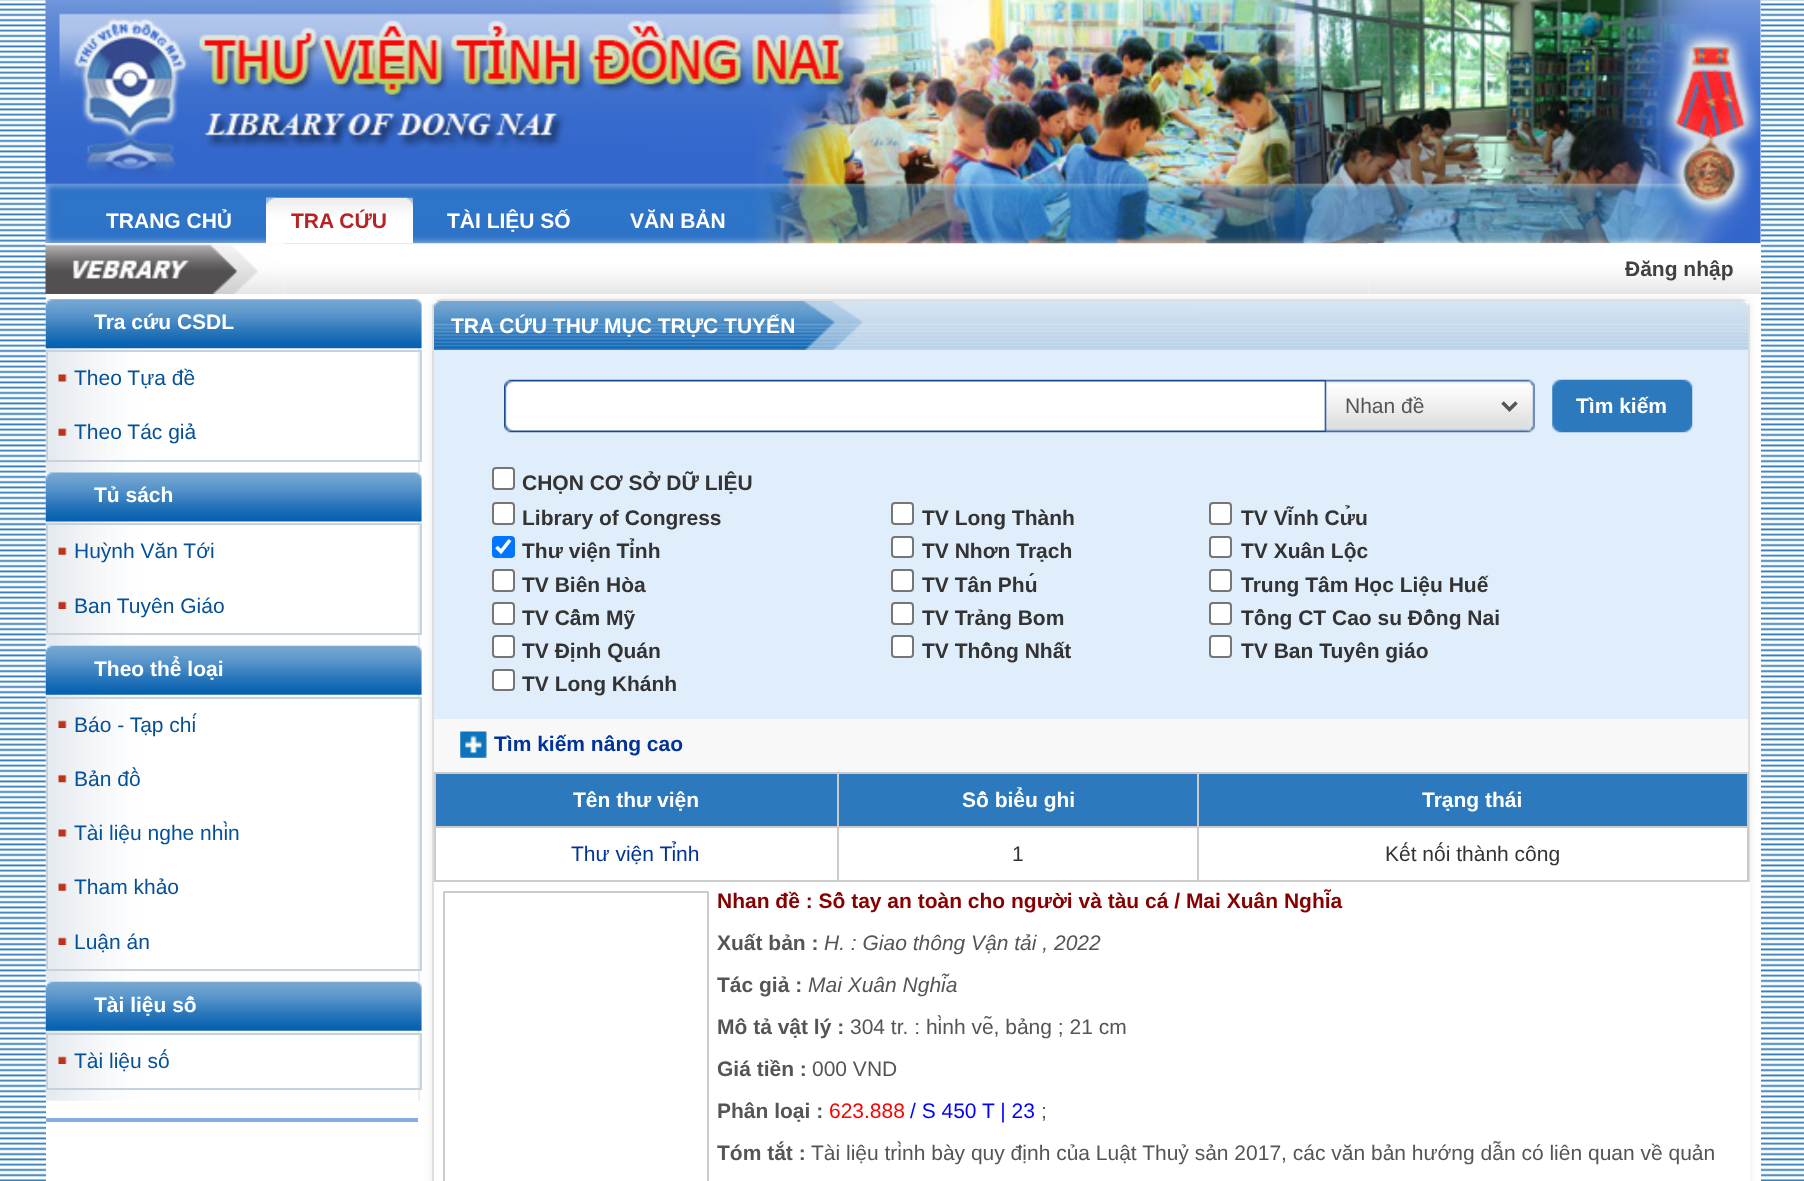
<?xml version="1.0" encoding="UTF-8"?>
<svg xmlns="http://www.w3.org/2000/svg" xmlns:xlink="http://www.w3.org/1999/xlink" width="1804" height="1181">
  <rect width="100%" height="100%" fill="#ffffff" />
  <image x="0" y="0" width="1804" height="1181" xlink:href="image1.png" />
  <rect x="46" width="1715" height="1181" fill="#ffffff" />
  <image x="45" y="0" width="1716" height="244" xlink:href="image2.png" />
  <image x="266" y="197" width="147" height="47" xlink:href="image3.png" />
  <image x="266" y="197" width="9" height="47" xlink:href="image4.png" />
  <image x="283" y="245" width="1086" height="49" xlink:href="image6.png" />
  <image x="45" y="243" width="239" height="51" xlink:href="image5.png" />
  <image x="1393" y="243" width="368" height="51" xlink:href="image8.png" />
  <rect x="432" y="299" width="1318" height="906" rx="9" fill="#ebebeb" filter="blur(5px)" />
  <image x="1368" y="243" width="25" height="51" xlink:href="image7.png" />
  <image x="45" y="299" width="375" height="802" xlink:href="image9.png" />
  <image x="45" y="299" width="377" height="50" xlink:href="image10.png" />
  <rect x="47" y="351" width="374" height="110" fill="none" stroke="#c7d2dc" stroke-width="2" />
  <image x="58" y="374" width="9" height="8" xlink:href="image11.png" />
  <image x="58" y="428" width="9" height="8" xlink:href="image12.png" />
  <image x="45" y="472" width="377" height="50" xlink:href="image13.png" />
  <rect x="47" y="524" width="374" height="110" fill="none" stroke="#c7d2dc" stroke-width="2" />
  <image x="58" y="547" width="9" height="8" xlink:href="image12.png" />
  <image x="58" y="601" width="9" height="8" xlink:href="image14.png" />
  <image x="45" y="645" width="377" height="50" xlink:href="image15.png" />
  <rect x="47" y="698" width="374" height="272" fill="none" stroke="#c7d2dc" stroke-width="2" />
  <image x="58" y="720" width="9" height="8" xlink:href="image14.png" />
  <image x="58" y="774" width="9" height="9" xlink:href="image16.png" />
  <image x="58" y="829" width="9" height="8" xlink:href="image11.png" />
  <image x="58" y="883" width="9" height="8" xlink:href="image12.png" />
  <image x="58" y="937" width="9" height="8" xlink:href="image14.png" />
  <image x="45" y="981" width="377" height="50" xlink:href="image15.png" />
  <rect x="47" y="1034" width="374" height="55" fill="none" stroke="#c7d2dc" stroke-width="2" />
  <image x="58" y="1056" width="9" height="8" xlink:href="image14.png" />
  <rect x="46" y="1118" width="372" height="4" fill="#83b0ec" />
  <rect x="433" y="300" width="1316" height="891" rx="8" fill="#e0edfa" stroke="#dedede" stroke-width="2" />
  <image x="863" y="301" width="886" height="49" xlink:href="image17.png" />
  <image x="434" y="301" width="429" height="49" xlink:href="image18.png" />
  <image x="504" y="379" width="823" height="54" xlink:href="image19.png" />
  <image x="1326" y="379" width="209" height="54" xlink:href="image20.png" />
  <path d="M 1502.5 402.5 l 7 7 l 7 -7" fill="none" stroke="#555555" stroke-width="3.5" />
  <image x="1552" y="379" width="141" height="54" xlink:href="image21.png" />
  <rect x="493" y="468" width="21" height="21" rx="3" fill="#ffffff" stroke="#767676" stroke-width="2" />
  <rect x="493" y="503" width="21" height="21" rx="3" fill="#ffffff" stroke="#767676" stroke-width="2" />
  <rect x="892" y="503" width="21" height="21" rx="3" fill="#ffffff" stroke="#767676" stroke-width="2" />
  <rect x="1210" y="503" width="21" height="21" rx="3" fill="#ffffff" stroke="#767676" stroke-width="2" />
  <rect x="492" y="536" width="23" height="22" rx="4" fill="#0075ff" />
  <path d="M 496.5 547 l 4.5 4.5 l 9 -11.5" fill="none" stroke="#ffffff" stroke-width="3.6" />
  <rect x="892" y="537" width="21" height="20" rx="3" fill="#ffffff" stroke="#767676" stroke-width="2" />
  <rect x="1210" y="537" width="21" height="20" rx="3" fill="#ffffff" stroke="#767676" stroke-width="2" />
  <rect x="493" y="570" width="21" height="21" rx="3" fill="#ffffff" stroke="#767676" stroke-width="2" />
  <rect x="892" y="570" width="21" height="21" rx="3" fill="#ffffff" stroke="#767676" stroke-width="2" />
  <rect x="1210" y="570" width="21" height="21" rx="3" fill="#ffffff" stroke="#767676" stroke-width="2" />
  <rect x="493" y="603" width="21" height="21" rx="3" fill="#ffffff" stroke="#767676" stroke-width="2" />
  <rect x="892" y="603" width="21" height="21" rx="3" fill="#ffffff" stroke="#767676" stroke-width="2" />
  <rect x="1210" y="603" width="21" height="21" rx="3" fill="#ffffff" stroke="#767676" stroke-width="2" />
  <rect x="493" y="636" width="21" height="21" rx="3" fill="#ffffff" stroke="#767676" stroke-width="2" />
  <rect x="892" y="636" width="21" height="21" rx="3" fill="#ffffff" stroke="#767676" stroke-width="2" />
  <rect x="1210" y="636" width="21" height="21" rx="3" fill="#ffffff" stroke="#767676" stroke-width="2" />
  <rect x="493" y="670" width="21" height="20" rx="3" fill="#ffffff" stroke="#767676" stroke-width="2" />
  <rect x="434" y="719" width="1314" height="53" fill="#f8f8f8" />
  <image x="460" y="731" width="27" height="27" xlink:href="image22.png" />
  <rect x="436" y="828" width="1311" height="52" fill="#ffffff" />
  <rect x="436" y="774" width="401" height="52" fill="#2c7abd" />
  <rect x="1197" y="772" width="551" height="2" fill="#cccccc" />
  <rect x="1197" y="826" width="551" height="2" fill="#cccccc" />
  <rect x="1747" y="826" width="2" height="56" fill="#cccccc" />
  <rect x="1197" y="880" width="551" height="2" fill="#cccccc" />
  <rect x="1197" y="826" width="2" height="56" fill="#cccccc" />
  <rect x="837" y="826" width="362" height="2" fill="#cccccc" />
  <rect x="1197" y="772" width="2" height="56" fill="#cccccc" />
  <rect x="837" y="772" width="362" height="2" fill="#cccccc" />
  <rect x="837" y="880" width="362" height="2" fill="#cccccc" />
  <rect x="837" y="826" width="2" height="56" fill="#cccccc" />
  <rect x="434" y="826" width="404" height="2" fill="#cccccc" />
  <rect x="837" y="772" width="2" height="56" fill="#cccccc" />
  <rect x="434" y="772" width="404" height="2" fill="#cccccc" />
  <rect x="434" y="880" width="404" height="2" fill="#cccccc" />
  <rect x="434" y="826" width="2" height="56" fill="#cccccc" />
  <rect x="434" y="772" width="2" height="56" fill="#cccccc" />
  <rect x="839" y="774" width="358" height="52" fill="#2c7abd" />
  <rect x="1199" y="774" width="548" height="52" fill="#2c7abd" />
  <rect x="1747" y="772" width="2" height="56" fill="#cccccc" />
  <rect x="434" y="882" width="1316" height="299" fill="#ffffff" />
  <rect x="444" y="892" width="264" height="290" fill="none" stroke="#cccccc" stroke-width="2" />
  <text x="106" y="228" style="font-family: Liberation Sans; font-size: 21px; font-weight: bold; fill: #ffffff">TRANG CHỦ</text>
  <text x="291" y="228" style="font-family: Liberation Sans; font-size: 21px; font-weight: bold; fill: #b92222">TRA CỨU</text>
  <text x="447" y="228" style="font-family: Liberation Sans; font-size: 21px; font-weight: bold; fill: #ffffff">TÀI LIỆU SỐ</text>
  <text x="630" y="228" style="font-family: Liberation Sans; font-size: 21px; font-weight: bold; fill: #ffffff">VĂN BẢN</text>
  <text x="1625" y="276" style="font-family: Liberation Sans; font-size: 21px; font-weight: bold; fill: #414141">Đăng nhập</text>
  <text x="94" y="329" style="font-family: Liberation Sans; font-size: 21px; font-weight: bold; fill: #ffffff">Tra cứu CSDL</text>
  <text x="74" y="385" style="font-family: Liberation Sans; font-size: 21px; fill: #055096">Theo Tựa đề</text>
  <text x="74" y="439" style="font-family: Liberation Sans; font-size: 21px; fill: #055096">Theo Tác giả</text>
  <text x="94" y="502" style="font-family: Liberation Sans; font-size: 21px; font-weight: bold; fill: #ffffff">Tủ sách</text>
  <text x="74" y="558" style="font-family: Liberation Sans; font-size: 21px; fill: #055096">Huỳnh Văn Tới</text>
  <text x="74" y="613" style="font-family: Liberation Sans; font-size: 21px; fill: #055096">Ban Tuyên Giáo</text>
  <text x="94" y="676" style="font-family: Liberation Sans; font-size: 21px; font-weight: bold; fill: #ffffff">Theo thể loại</text>
  <text x="74" y="732" style="font-family: Liberation Sans; font-size: 21px; fill: #055096">Báo - Tạp chí</text>
  <text x="74" y="786" style="font-family: Liberation Sans; font-size: 21px; fill: #055096">Bản đồ</text>
  <text x="74" y="840" style="font-family: Liberation Sans; font-size: 21px; fill: #055096">Tài liệu nghe nhìn</text>
  <text x="74" y="894" style="font-family: Liberation Sans; font-size: 21px; fill: #055096">Tham khảo</text>
  <text x="74" y="949" style="font-family: Liberation Sans; font-size: 21px; fill: #055096">Luận án</text>
  <text x="94" y="1012" style="font-family: Liberation Sans; font-size: 21px; font-weight: bold; fill: #ffffff">Tài liệu số</text>
  <text x="74" y="1068" style="font-family: Liberation Sans; font-size: 21px; fill: #055096">Tài liệu số</text>
  <text x="451" y="333" style="font-family: Liberation Sans; font-size: 21px; font-weight: bold; fill: #ffffff">TRA CỨU THƯ MỤC TRỰC TUYẾN</text>
  <text x="1345" y="413" style="font-family: Liberation Sans; font-size: 21px; fill: #555555">Nhan đề</text>
  <text x="1576" y="413" style="font-family: Liberation Sans; font-size: 21px; font-weight: bold; fill: #ffffff">Tìm kiếm</text>
  <text x="522" y="490" style="font-family: Liberation Sans; font-size: 21px; font-weight: bold; fill: #333333">CHỌN CƠ SỞ DỮ LIỆU</text>
  <text x="522" y="525" style="font-family: Liberation Sans; font-size: 21px; font-weight: bold; fill: #333333">Library of Congress</text>
  <text x="922" y="525" style="font-family: Liberation Sans; font-size: 21px; font-weight: bold; fill: #333333">TV Long Thành</text>
  <text x="1241" y="525" style="font-family: Liberation Sans; font-size: 21px; font-weight: bold; fill: #333333">TV Vĩnh Cửu</text>
  <text x="522" y="558" style="font-family: Liberation Sans; font-size: 21px; font-weight: bold; fill: #333333">Thư viện Tỉnh</text>
  <text x="922" y="558" style="font-family: Liberation Sans; font-size: 21px; font-weight: bold; fill: #333333">TV Nhơn Trạch</text>
  <text x="1241" y="558" style="font-family: Liberation Sans; font-size: 21px; font-weight: bold; fill: #333333">TV Xuân Lộc</text>
  <text x="522" y="592" style="font-family: Liberation Sans; font-size: 21px; font-weight: bold; fill: #333333">TV Biên Hòa</text>
  <text x="922" y="592" style="font-family: Liberation Sans; font-size: 21px; font-weight: bold; fill: #333333">TV Tân Phú</text>
  <text x="1241" y="592" style="font-family: Liberation Sans; font-size: 21px; font-weight: bold; fill: #333333">Trung Tâm Học Liệu Huế</text>
  <text x="522" y="625" style="font-family: Liberation Sans; font-size: 21px; font-weight: bold; fill: #333333">TV Cẩm Mỹ</text>
  <text x="922" y="625" style="font-family: Liberation Sans; font-size: 21px; font-weight: bold; fill: #333333">TV Trảng Bom</text>
  <text x="1241" y="625" style="font-family: Liberation Sans; font-size: 21px; font-weight: bold; fill: #333333">Tổng CT Cao su Đồng Nai</text>
  <text x="522" y="658" style="font-family: Liberation Sans; font-size: 21px; font-weight: bold; fill: #333333">TV Định Quán</text>
  <text x="922" y="658" style="font-family: Liberation Sans; font-size: 21px; font-weight: bold; fill: #333333">TV Thống Nhất</text>
  <text x="1241" y="658" style="font-family: Liberation Sans; font-size: 21px; font-weight: bold; fill: #333333">TV Ban Tuyên giáo</text>
  <text x="522" y="691" style="font-family: Liberation Sans; font-size: 21px; font-weight: bold; fill: #333333">TV Long Khánh</text>
  <text x="494" y="751" style="font-family: Liberation Sans; font-size: 21px; font-weight: bold; fill: #003399">Tìm kiếm nâng cao</text>
  <text x="573" y="807" style="font-family: Liberation Sans; font-size: 21px; font-weight: bold; fill: #ffffff">Tên thư viện</text>
  <text x="962" y="807" style="font-family: Liberation Sans; font-size: 21px; font-weight: bold; fill: #ffffff">Số biểu ghi</text>
  <text x="1422" y="807" style="font-family: Liberation Sans; font-size: 21px; font-weight: bold; fill: #ffffff">Trạng thái</text>
  <text x="571" y="861" style="font-family: Liberation Sans; font-size: 21px; fill: #003399">Thư viện Tỉnh</text>
  <text x="1012" y="861" style="font-family: Liberation Sans; font-size: 21px; fill: #333333">1</text>
  <text x="1385" y="861" style="font-family: Liberation Sans; font-size: 21px; fill: #333333">Kết nối thành công</text>
  <text x="717" y="908" style="font-family: Liberation Sans; font-size: 21px; font-weight: bold; fill: #860000">Nhan đề : Sổ tay an toàn cho người và tàu cá / Mai Xuân Nghĩa</text>
  <text x="717" y="950" style="font-family: Liberation Sans; font-size: 21px; font-weight: bold; fill: #555555">Xuất bản :</text>
  <text x="824" y="950" style="font-family: Liberation Sans; font-size: 21px; font-style: italic; fill: #555555">H. : Giao thông Vận tải , 2022</text>
  <text x="717" y="992" style="font-family: Liberation Sans; font-size: 21px; font-weight: bold; fill: #555555">Tác giả :</text>
  <text x="808" y="992" style="font-family: Liberation Sans; font-size: 21px; font-style: italic; fill: #555555">Mai Xuân Nghĩa</text>
  <text x="717" y="1034" style="font-family: Liberation Sans; font-size: 21px; font-weight: bold; fill: #555555">Mô tả vật lý :</text>
  <text x="850" y="1034" style="font-family: Liberation Sans; font-size: 21px; fill: #555555">304 tr. : hình vẽ, bảng ; 21 cm</text>
  <text x="717" y="1076" style="font-family: Liberation Sans; font-size: 21px; font-weight: bold; fill: #555555">Giá tiền :</text>
  <text x="812" y="1076" style="font-family: Liberation Sans; font-size: 21px; fill: #555555">000 VND</text>
  <text x="717" y="1118" style="font-family: Liberation Sans; font-size: 21px; font-weight: bold; fill: #555555">Phân loại :</text>
  <text x="829" y="1118" style="font-family: Liberation Sans; font-size: 21px; fill: #ff0000">623.888</text>
  <text x="910" y="1118" style="font-family: Liberation Sans; font-size: 21px; fill: #0000ff">/ S 450 T | 23</text>
  <text x="1041" y="1118" style="font-family: Liberation Sans; font-size: 21px; fill: #555555">;</text>
  <text x="717" y="1160" style="font-family: Liberation Sans; font-size: 21px; font-weight: bold; fill: #555555">Tóm tắt :</text>
  <text x="811" y="1160" style="font-family: Liberation Sans; font-size: 21px; fill: #555555">Tài liệu trình bày quy định của Luật Thuỷ sản 2017, các văn bản hướng dẫn có liên quan về quản</text>
</svg>
